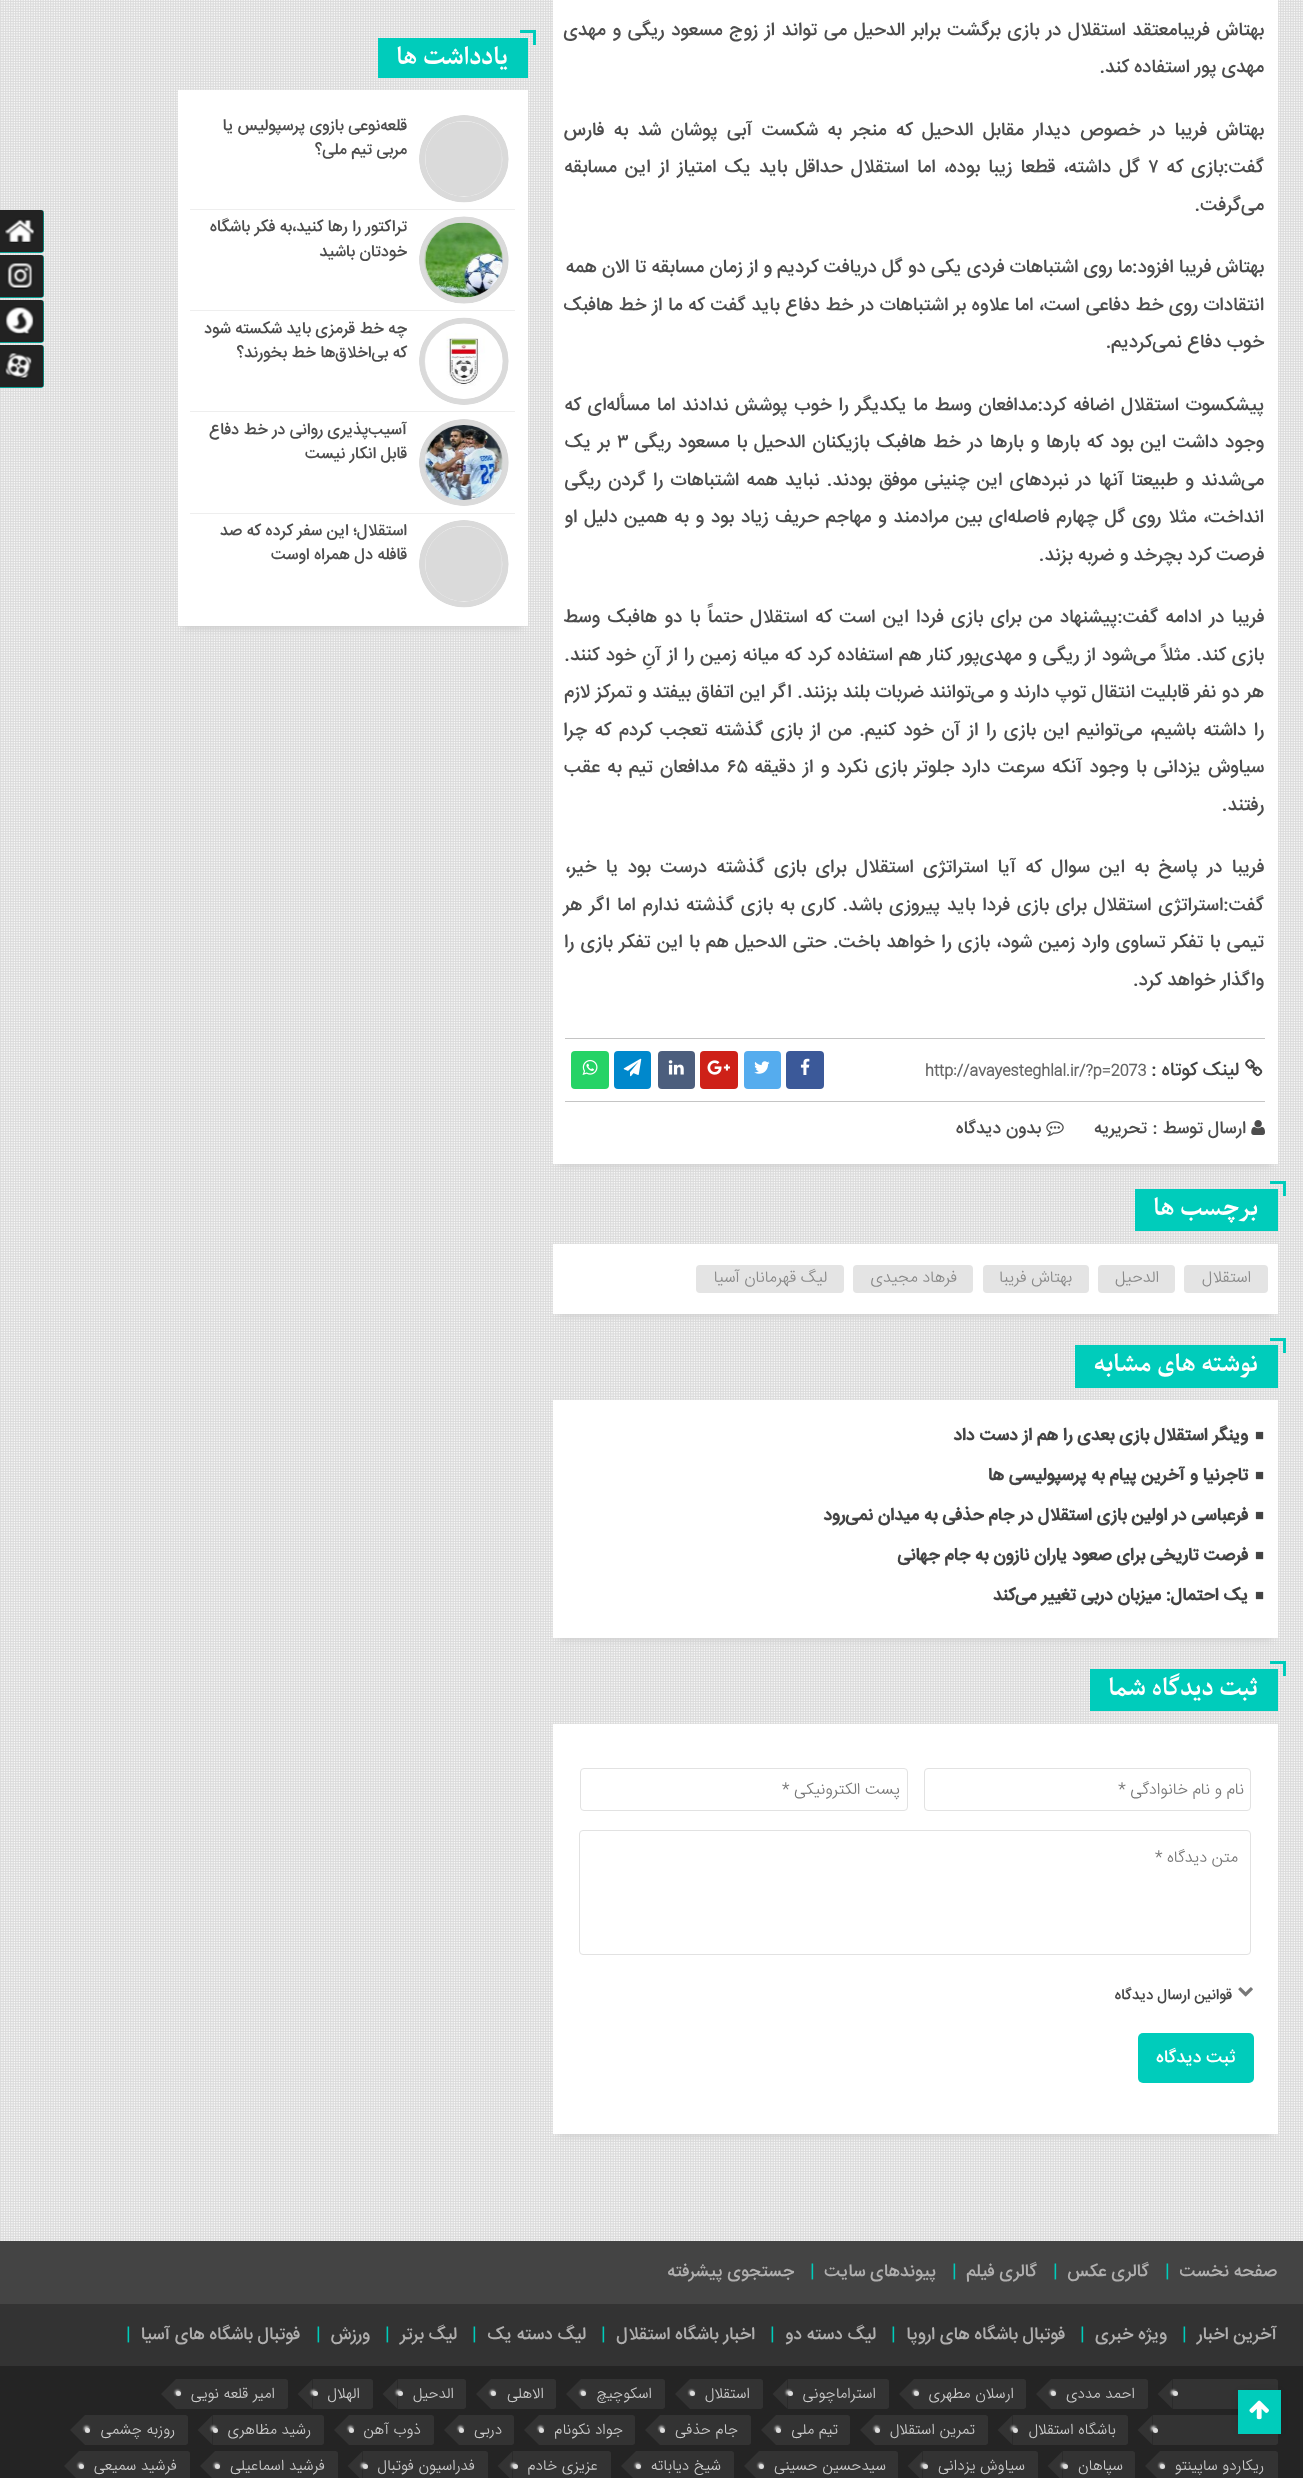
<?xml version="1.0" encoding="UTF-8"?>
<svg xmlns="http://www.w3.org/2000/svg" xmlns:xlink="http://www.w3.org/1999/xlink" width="1303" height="2478">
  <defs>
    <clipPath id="clip1"><path d="M 464 115 c 24.5 0 45 19.5 45 44 c 0 24 -20.5 43.5 -45 43.5 c -25 0 -45 -19.5 -45 -43.5 c 0 -24.5 20 -44 45 -44 z" /></clipPath>
    <clipPath id="clip2"><path d="M 464 216 c 24.5 0 45 20 45 44 c 0 24 -20.5 44 -45 44 c -25 0 -45 -20 -45 -44 c 0 -24 20 -44 45 -44 z" /></clipPath>
    <clipPath id="clip3"><path d="M 464 317.5 c 24.5 0 45 19.5 45 43.5 c 0 24.5 -20.5 44 -45 44 c -25 0 -45 -19.5 -45 -44 c 0 -24 20 -43.5 45 -43.5 z" /></clipPath>
    <clipPath id="clip4"><path d="M 464 419 c 24.5 0 45 19.5 45 43.5 c 0 24 -20.5 43.5 -45 43.5 c -25 0 -45 -19.5 -45 -43.5 c 0 -24 20 -43.5 45 -43.5 z" /></clipPath>
    <clipPath id="clip5"><path d="M 464 520 c 24.5 0 45 19.5 45 44 c 0 24 -20.5 43.5 -45 43.5 c -25 0 -45 -19.5 -45 -43.5 c 0 -24.5 20 -44 45 -44 z" /></clipPath>
  </defs>
  <rect width="100%" height="100%" fill="#ffffff" />
  <image x="0" y="0" width="1303" height="2241" xlink:href="image1.png" />
  <rect x="559" y="-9" width="712" height="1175" fill="#cfcfcf" filter="blur(3px)" />
  <rect x="553" width="725" height="1164" fill="#ffffff" />
  <rect x="565" y="1038" width="700" height="1" fill="#c4c4c4" />
  <rect x="565" y="1101" width="700" height="1" fill="#c4c4c4" />
  <image x="1245" y="1059" width="18" height="18" xlink:href="image2.png" />
  <rect x="786" y="1051" width="38" height="38" rx="4" fill="#3b5999" />
  <image x="800" y="1058" width="10" height="17" xlink:href="image3.png" />
  <rect x="744" y="1051" width="37" height="38" rx="4" fill="#55acee" />
  <image x="754" y="1061" width="16" height="13" xlink:href="image4.png" />
  <rect x="700" y="1051" width="38" height="38" rx="4" fill="#ce2118" />
  <image x="707" y="1060" width="23" height="15" xlink:href="image5.png" />
  <rect x="658" y="1051" width="37" height="38" rx="4" fill="#4c5e7d" />
  <image x="668" y="1060" width="16" height="15" xlink:href="image6.png" />
  <rect x="614" y="1051" width="37" height="38" rx="4" fill="#0088cc" />
  <image x="623" y="1058" width="19" height="19" xlink:href="image7.png" />
  <rect x="571" y="1051" width="38" height="38" rx="4" fill="#25d366" />
  <image x="582" y="1059" width="16" height="16" xlink:href="image8.png" />
  <image x="1251" y="1120" width="14" height="15" xlink:href="image9.png" />
  <image x="1046" y="1121" width="18" height="16" xlink:href="image10.png" />
  <rect x="1135" y="1189" width="143" height="42" fill="#00ccbb" />
  <rect x="1270" y="1181" width="15" height="3" fill="#00ccbb" />
  <rect x="1283" y="1181" width="3" height="15" fill="#00ccbb" />
  <rect x="559" y="1259" width="712" height="57" fill="#cfcfcf" filter="blur(3px)" />
  <rect x="553" y="1244" width="725" height="70" fill="#ffffff" />
  <rect x="1184" y="1265" width="84" height="28" rx="4" fill="#e4e4e4" />
  <rect x="1098" y="1265" width="77" height="28" rx="4" fill="#e4e4e4" />
  <rect x="983" y="1265" width="106" height="28" rx="4" fill="#e4e4e4" />
  <rect x="853" y="1265" width="120" height="28" rx="4" fill="#e4e4e4" />
  <rect x="696" y="1265" width="148" height="28" rx="4" fill="#e4e4e4" />
  <rect x="1075" y="1345" width="203" height="43" fill="#00ccbb" />
  <rect x="1270" y="1338" width="15" height="3" fill="#00ccbb" />
  <rect x="1283" y="1338" width="3" height="15" fill="#00ccbb" />
  <rect x="559" y="1415" width="712" height="225" fill="#cfcfcf" filter="blur(3px)" />
  <rect x="553" y="1400" width="725" height="238" fill="#ffffff" />
  <rect x="1090" y="1669" width="188" height="42" fill="#00ccbb" />
  <rect x="1270" y="1661" width="15" height="3" fill="#00ccbb" />
  <rect x="1283" y="1661" width="3" height="15" fill="#00ccbb" />
  <rect x="559" y="1739" width="712" height="397" fill="#cfcfcf" filter="blur(3px)" />
  <rect x="553" y="1724" width="725" height="410" fill="#ffffff" />
  <rect x="924.5" y="1768.5" width="326" height="42" rx="3.5" fill="none" stroke="#e2e2e2" />
  <rect x="580.5" y="1768.5" width="327" height="42" rx="3.5" fill="none" stroke="#e2e2e2" />
  <rect x="579.5" y="1830.5" width="671" height="124" rx="3.5" fill="none" stroke="#e2e2e2" />
  <image x="1238" y="1987" width="15" height="10" xlink:href="image11.png" />
  <rect x="1138" y="2033" width="116" height="50" rx="5" fill="#00ccbb" />
  <rect x="378" y="38" width="150" height="40" fill="#00ccbb" />
  <rect x="520" y="30" width="15" height="3" fill="#00ccbb" />
  <rect x="533" y="30" width="3" height="15" fill="#00ccbb" />
  <rect x="184" y="105" width="337" height="524" fill="#cfcfcf" filter="blur(3px)" />
  <rect x="178" y="90" width="350" height="536" fill="#ffffff" />
  <rect x="190" y="209" width="325" height="1" fill="#eeeeee" />
  <g clip-path="url(#clip1)">
    <path d="M 464 118 c 23 0 41.5 18.5 41.5 41 c 0 22 -18.5 40.5 -41.5 40.5 c -23.5 0 -42 -18.5 -42 -40.5 c 0 -22.5 18.5 -41 42 -41 z" fill="none" stroke="#dadada" stroke-width="6.2" />
  </g>
  <image x="425" y="121" width="78" height="75" xlink:href="image12.png" />
  <rect x="190" y="310" width="325" height="1" fill="#eeeeee" />
  <g clip-path="url(#clip2)">
    <path d="M 464 219.5 c 23 0 41.5 18 41.5 40.5 c 0 22.5 -18.5 40.5 -41.5 40.5 c -23.5 0 -42 -18 -42 -40.5 c 0 -22.5 18.5 -40.5 42 -40.5 z" fill="none" stroke="#dadada" stroke-width="6.2" />
  </g>
  <image x="424" y="222" width="79" height="76" xlink:href="image13.png" />
  <rect x="190" y="411" width="325" height="1" fill="#eeeeee" />
  <g clip-path="url(#clip3)">
    <path d="M 464 320.5 c 23 0 41.5 18.5 41.5 40.5 c 0 22.5 -18.5 41 -41.5 41 c -23.5 0 -42 -18.5 -42 -41 c 0 -22 18.5 -40.5 42 -40.5 z" fill="none" stroke="#dadada" stroke-width="6.2" />
  </g>
  <image x="424" y="324" width="79" height="75" xlink:href="image14.png" />
  <rect x="190" y="513" width="325" height="1" fill="#eeeeee" />
  <g clip-path="url(#clip4)">
    <path d="M 464 422 c 23 0 41.5 18 41.5 40.5 c 0 22.5 -18.5 40.5 -41.5 40.5 c -23.5 0 -42 -18 -42 -40.5 c 0 -22.5 18.5 -40.5 42 -40.5 z" fill="none" stroke="#dadada" stroke-width="6.2" />
  </g>
  <image x="424" y="425" width="79" height="75" xlink:href="image15.png" />
  <g clip-path="url(#clip5)">
    <path d="M 464 523 c 23 0 41.5 18.5 41.5 41 c 0 22 -18.5 40.5 -41.5 40.5 c -23.5 0 -42 -18.5 -42 -40.5 c 0 -22.5 18.5 -41 42 -41 z" fill="none" stroke="#dadada" stroke-width="6.2" />
  </g>
  <image x="425" y="526" width="78" height="75" xlink:href="image12.png" />
  <path d="M -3 210 h 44 c 1.5 0 3 1.5 3 3 v 37 c 0 1.5 -1.5 3 -3 3 h -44 z" fill="#00ccbb" />
  <image x="0" y="210" width="44" height="43" xlink:href="image16.png" />
  <path d="M -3 255 h 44 c 1.5 0 3 1.5 3 3 v 37 c 0 1.5 -1.5 3 -3 3 h -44 z" fill="#00ccbb" />
  <image x="0" y="255" width="44" height="43" xlink:href="image17.png" />
  <path d="M -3 300 h 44 c 1.5 0 3 1.5 3 3 v 37 c 0 1.5 -1.5 3 -3 3 h -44 z" fill="#00ccbb" />
  <image x="0" y="300" width="44" height="43" xlink:href="image18.png" />
  <path d="M -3 345 h 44 c 1.5 0 3 1.5 3 3 v 37 c 0 1.5 -1.5 3 -3 3 h -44 z" fill="#00ccbb" />
  <image x="0" y="345" width="44" height="43" xlink:href="image19.png" />
  <rect y="2241" width="1303" height="63" fill="#444444" />
  <rect y="2304" width="1303" height="62" fill="#333333" />
  <rect y="2366" width="1303" height="112" fill="#242424" />
  <path d="M 1173 2379 h 102.5 c 1.5 0 2.5 1 2.5 2.5 v 25 c 0 1.5 -1 2.5 -2.5 2.5 h -102.5 z" fill="#333333" />
  <path d="M 1153 2415 h 122.5 c 1.5 0 2.5 1 2.5 2.5 v 25 c 0 1.5 -1 2.5 -2.5 2.5 h -122.5 z" fill="#333333" />
  <rect x="1241" y="2394" width="37" height="36" fill="#000000" fill-opacity="0.3" filter="blur(4.5px)" />
  <rect x="1238" y="2390" width="43" height="44" fill="#00ccbb" />
  <image x="1249" y="2400" width="20" height="20" xlink:href="image20.png" />
  <path d="M 1172.5 2379 v 30 l -15 -15 z" fill="#333333" />
  <rect x="1171" y="2390" width="5" height="5" rx="2.5" fill="#cccccc" filter="blur(1px)" />
  <circle cx="1175.5" cy="2393.5" r="2.5" fill="#dddddd" />
  <path d="M 1051 2379 h 94.5 c 1.5 0 2.5 1 2.5 2.5 v 25 c 0 1.5 -1 2.5 -2.5 2.5 h -94.5 z" fill="#333333" />
  <path d="M 1051 2379 v 30 l -15 -15 z" fill="#333333" />
  <rect x="1050" y="2390" width="5" height="5" rx="2.5" fill="#cccccc" filter="blur(1px)" />
  <circle cx="1053.5" cy="2393.5" r="2.5" fill="#dddddd" />
  <path d="M 914 2379 h 109.5 c 1.5 0 2.5 1 2.5 2.5 v 25 c 0 1.5 -1 2.5 -2.5 2.5 h -109.5 z" fill="#333333" />
  <path d="M 914 2379 v 30 l -15 -15 z" fill="#333333" />
  <rect x="913" y="2390" width="5" height="5" rx="2.5" fill="#cccccc" filter="blur(1px)" />
  <circle cx="916.5" cy="2393.5" r="2.5" fill="#dddddd" />
  <path d="M 788 2379 h 98.5 c 1.5 0 2.5 1 2.5 2.5 v 25 c 0 1.5 -1 2.5 -2.5 2.5 h -98.5 z" fill="#333333" />
  <path d="M 787.5 2379 v 30 l -15 -15 z" fill="#333333" />
  <rect x="786" y="2390" width="5" height="5" rx="2.5" fill="#cccccc" filter="blur(1px)" />
  <circle cx="790.5" cy="2393.5" r="2.5" fill="#dddddd" />
  <path d="M 690 2379 h 70.5 c 1.5 0 2.5 1 2.5 2.5 v 25 c 0 1.5 -1 2.5 -2.5 2.5 h -70.5 z" fill="#333333" />
  <path d="M 690 2379 v 30 l -15 -15 z" fill="#333333" />
  <rect x="689" y="2390" width="5" height="5" rx="2.5" fill="#cccccc" filter="blur(1px)" />
  <circle cx="692.5" cy="2393.5" r="2.5" fill="#dddddd" />
  <path d="M 581 2379 h 81.5 c 1.5 0 2.5 1 2.5 2.5 v 25 c 0 1.5 -1 2.5 -2.5 2.5 h -81.5 z" fill="#333333" />
  <path d="M 581 2379 v 30 l -15 -15 z" fill="#333333" />
  <rect x="580" y="2390" width="5" height="5" rx="2.5" fill="#cccccc" filter="blur(1px)" />
  <circle cx="583.5" cy="2393.5" r="2.5" fill="#dddddd" />
  <path d="M 491 2379 h 62.5 c 1.5 0 2.5 1 2.5 2.5 v 25 c 0 1.5 -1 2.5 -2.5 2.5 h -62.5 z" fill="#333333" />
  <path d="M 491 2379 v 30 l -15 -15 z" fill="#333333" />
  <rect x="490" y="2390" width="5" height="5" rx="2.5" fill="#cccccc" filter="blur(1px)" />
  <circle cx="493.5" cy="2393.5" r="2.5" fill="#dddddd" />
  <path d="M 398 2379 h 65.5 c 1.5 0 2.5 1 2.5 2.5 v 25 c 0 1.5 -1 2.5 -2.5 2.5 h -65.5 z" fill="#333333" />
  <path d="M 397.5 2379 v 30 l -15 -15 z" fill="#333333" />
  <rect x="396" y="2390" width="5" height="5" rx="2.5" fill="#cccccc" filter="blur(1px)" />
  <circle cx="400.5" cy="2393.5" r="2.5" fill="#dddddd" />
  <path d="M 313 2379 h 57.5 c 1.5 0 2.5 1 2.5 2.5 v 25 c 0 1.5 -1 2.5 -2.5 2.5 h -57.5 z" fill="#333333" />
  <path d="M 312.5 2379 v 30 l -15 -15 z" fill="#333333" />
  <rect x="311" y="2390" width="5" height="5" rx="2.5" fill="#cccccc" filter="blur(1px)" />
  <circle cx="315.5" cy="2393.5" r="2.5" fill="#dddddd" />
  <path d="M 176 2379 h 109.5 c 1.5 0 2.5 1 2.5 2.5 v 25 c 0 1.5 -1 2.5 -2.5 2.5 h -109.5 z" fill="#333333" />
  <path d="M 176 2379 v 30 l -15 -15 z" fill="#333333" />
  <rect x="175" y="2390" width="5" height="5" rx="2.5" fill="#cccccc" filter="blur(1px)" />
  <circle cx="178.5" cy="2393.5" r="2.5" fill="#dddddd" />
  <path d="M 1152.5 2415 v 30 l -15 -15 z" fill="#333333" />
  <rect x="1151" y="2426" width="5" height="5" rx="2.5" fill="#cccccc" filter="blur(1px)" />
  <circle cx="1155.5" cy="2430.5" r="2.5" fill="#dddddd" />
  <path d="M 1013 2415 h 112.5 c 1.5 0 2.5 1 2.5 2.5 v 25 c 0 1.5 -1 2.5 -2.5 2.5 h -112.5 z" fill="#333333" />
  <path d="M 1012.5 2415 v 30 l -15 -15 z" fill="#333333" />
  <rect x="1011" y="2426" width="5" height="5" rx="2.5" fill="#cccccc" filter="blur(1px)" />
  <circle cx="1015.5" cy="2430.5" r="2.5" fill="#dddddd" />
  <path d="M 875 2415 h 110.5 c 1.5 0 2.5 1 2.5 2.5 v 25 c 0 1.5 -1 2.5 -2.5 2.5 h -110.5 z" fill="#333333" />
  <path d="M 875 2415 v 30 l -15 -15 z" fill="#333333" />
  <rect x="874" y="2426" width="5" height="5" rx="2.5" fill="#cccccc" filter="blur(1px)" />
  <circle cx="877.5" cy="2430.5" r="2.5" fill="#dddddd" />
  <path d="M 776 2415 h 71.5 c 1.5 0 2.5 1 2.5 2.5 v 25 c 0 1.5 -1 2.5 -2.5 2.5 h -71.5 z" fill="#333333" />
  <path d="M 776 2415 v 30 l -15 -15 z" fill="#333333" />
  <rect x="775" y="2426" width="5" height="5" rx="2.5" fill="#cccccc" filter="blur(1px)" />
  <circle cx="778.5" cy="2430.5" r="2.5" fill="#dddddd" />
  <path d="M 660 2415 h 88.5 c 1.5 0 2.5 1 2.5 2.5 v 25 c 0 1.5 -1 2.5 -2.5 2.5 h -88.5 z" fill="#333333" />
  <path d="M 660 2415 v 30 l -15 -15 z" fill="#333333" />
  <rect x="659" y="2426" width="5" height="5" rx="2.5" fill="#cccccc" filter="blur(1px)" />
  <circle cx="662.5" cy="2430.5" r="2.5" fill="#dddddd" />
  <path d="M 539 2415 h 93.5 c 1.5 0 2.5 1 2.5 2.5 v 25 c 0 1.5 -1 2.5 -2.5 2.5 h -93.5 z" fill="#333333" />
  <path d="M 539 2415 v 30 l -15 -15 z" fill="#333333" />
  <rect x="538" y="2426" width="5" height="5" rx="2.5" fill="#cccccc" filter="blur(1px)" />
  <circle cx="541.5" cy="2430.5" r="2.5" fill="#dddddd" />
  <path d="M 459 2415 h 52.5 c 1.5 0 2.5 1 2.5 2.5 v 25 c 0 1.5 -1 2.5 -2.5 2.5 h -52.5 z" fill="#333333" />
  <path d="M 459 2415 v 30 l -15 -15 z" fill="#333333" />
  <rect x="458" y="2426" width="5" height="5" rx="2.5" fill="#cccccc" filter="blur(1px)" />
  <circle cx="461.5" cy="2430.5" r="2.5" fill="#dddddd" />
  <path d="M 349 2415 h 82.5 c 1.5 0 2.5 1 2.5 2.5 v 25 c 0 1.5 -1 2.5 -2.5 2.5 h -82.5 z" fill="#333333" />
  <path d="M 349 2415 v 30 l -15 -15 z" fill="#333333" />
  <rect x="348" y="2426" width="5" height="5" rx="2.5" fill="#cccccc" filter="blur(1px)" />
  <circle cx="351.5" cy="2430.5" r="2.5" fill="#dddddd" />
  <path d="M 213 2415 h 108.5 c 1.5 0 2.5 1 2.5 2.5 v 25 c 0 1.5 -1 2.5 -2.5 2.5 h -108.5 z" fill="#333333" />
  <path d="M 212.5 2415 v 30 l -15 -15 z" fill="#333333" />
  <rect x="211" y="2426" width="5" height="5" rx="2.5" fill="#cccccc" filter="blur(1px)" />
  <circle cx="215.5" cy="2430.5" r="2.5" fill="#dddddd" />
  <path d="M 85 2415 h 100.5 c 1.5 0 2.5 1 2.5 2.5 v 25 c 0 1.5 -1 2.5 -2.5 2.5 h -100.5 z" fill="#333333" />
  <path d="M 85 2415 v 30 l -15 -15 z" fill="#333333" />
  <rect x="84" y="2426" width="5" height="5" rx="2.5" fill="#cccccc" filter="blur(1px)" />
  <circle cx="87.5" cy="2430.5" r="2.5" fill="#dddddd" />
  <path d="M 1160 2451 h 115.5 c 1.5 0 2.5 1 2.5 2.5 v 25 c 0 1.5 -1 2.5 -2.5 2.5 h -115.5 z" fill="#333333" />
  <path d="M 1160 2451 v 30 l -15 -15 z" fill="#333333" />
  <rect x="1159" y="2463" width="5" height="5" rx="2.5" fill="#cccccc" filter="blur(1px)" />
  <circle cx="1162.5" cy="2466.5" r="2.5" fill="#dddddd" />
  <path d="M 1063 2451 h 69.5 c 1.5 0 2.5 1 2.5 2.5 v 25 c 0 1.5 -1 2.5 -2.5 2.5 h -69.5 z" fill="#333333" />
  <path d="M 1062.5 2451 v 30 l -15 -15 z" fill="#333333" />
  <rect x="1061" y="2463" width="5" height="5" rx="2.5" fill="#cccccc" filter="blur(1px)" />
  <circle cx="1065.5" cy="2466.5" r="2.5" fill="#dddddd" />
  <path d="M 923 2451 h 112.5 c 1.5 0 2.5 1 2.5 2.5 v 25 c 0 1.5 -1 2.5 -2.5 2.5 h -112.5 z" fill="#333333" />
  <path d="M 922.5 2451 v 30 l -15 -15 z" fill="#333333" />
  <rect x="921" y="2463" width="5" height="5" rx="2.5" fill="#cccccc" filter="blur(1px)" />
  <circle cx="925.5" cy="2466.5" r="2.5" fill="#dddddd" />
  <path d="M 759 2451 h 136.5 c 1.5 0 2.5 1 2.5 2.5 v 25 c 0 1.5 -1 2.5 -2.5 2.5 h -136.5 z" fill="#333333" />
  <path d="M 759 2451 v 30 l -15 -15 z" fill="#333333" />
  <rect x="758" y="2463" width="5" height="5" rx="2.5" fill="#cccccc" filter="blur(1px)" />
  <circle cx="761.5" cy="2466.5" r="2.5" fill="#dddddd" />
  <path d="M 636 2451 h 95.5 c 1.5 0 2.5 1 2.5 2.5 v 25 c 0 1.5 -1 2.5 -2.5 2.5 h -95.5 z" fill="#333333" />
  <path d="M 636 2451 v 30 l -15 -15 z" fill="#333333" />
  <rect x="635" y="2463" width="5" height="5" rx="2.5" fill="#cccccc" filter="blur(1px)" />
  <circle cx="638.5" cy="2466.5" r="2.5" fill="#dddddd" />
  <path d="M 513 2451 h 95.5 c 1.5 0 2.5 1 2.5 2.5 v 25 c 0 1.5 -1 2.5 -2.5 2.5 h -95.5 z" fill="#333333" />
  <path d="M 512.5 2451 v 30 l -15 -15 z" fill="#333333" />
  <rect x="511" y="2463" width="5" height="5" rx="2.5" fill="#cccccc" filter="blur(1px)" />
  <circle cx="515.5" cy="2466.5" r="2.5" fill="#dddddd" />
  <path d="M 363 2451 h 122.5 c 1.5 0 2.5 1 2.5 2.5 v 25 c 0 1.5 -1 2.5 -2.5 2.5 h -122.5 z" fill="#333333" />
  <path d="M 362.5 2451 v 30 l -15 -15 z" fill="#333333" />
  <rect x="361" y="2463" width="5" height="5" rx="2.5" fill="#cccccc" filter="blur(1px)" />
  <circle cx="365.5" cy="2466.5" r="2.5" fill="#dddddd" />
  <path d="M 215 2451 h 120.5 c 1.5 0 2.5 1 2.5 2.5 v 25 c 0 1.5 -1 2.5 -2.5 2.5 h -120.5 z" fill="#333333" />
  <path d="M 215 2451 v 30 l -15 -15 z" fill="#333333" />
  <rect x="214" y="2463" width="5" height="5" rx="2.5" fill="#cccccc" filter="blur(1px)" />
  <circle cx="217.5" cy="2466.5" r="2.5" fill="#dddddd" />
  <path d="M 79 2451 h 108.5 c 1.5 0 2.5 1 2.5 2.5 v 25 c 0 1.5 -1 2.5 -2.5 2.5 h -108.5 z" fill="#333333" />
  <path d="M 79 2451 v 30 l -15 -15 z" fill="#333333" />
  <rect x="78" y="2463" width="5" height="5" rx="2.5" fill="#cccccc" filter="blur(1px)" />
  <circle cx="81.5" cy="2466.5" r="2.5" fill="#dddddd" />
  <text x="1264" y="35" word-spacing="1.5" style="font-family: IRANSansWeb; font-size: 18.75px; font-weight: 500; direction: rtl; fill: #4d4d4d">بهتاش فریبامعتقد استقلال در بازی برگشت برابر الدحیل می تواند از زوج مسعود ریگی و مهدی</text>
  <text x="1264" y="72" style="font-family: IRANSansWeb; font-size: 18.75px; font-weight: 500; direction: rtl; fill: #4d4d4d">مهدی پور استفاده کند.</text>
  <text x="1264" y="135" word-spacing="4.25" style="font-family: IRANSansWeb; font-size: 18.75px; font-weight: 500; direction: rtl; fill: #4d4d4d">بهتاش فریبا در خصوص دیدار مقابل الدحیل که منجر به شکست آبی پوشان شد به فارس</text>
  <text x="1264" y="172" word-spacing="3" style="font-family: IRANSansWeb; font-size: 18.75px; font-weight: 500; direction: rtl; fill: #4d4d4d">گفت:بازی که</text>
  <text x="1148" y="172" style="font-family: IRANSansWeb; font-size: 18.75px; font-weight: 500; fill: #4d4d4d">۷</text>
  <text x="1140" y="172" word-spacing="3" style="font-family: IRANSansWeb; font-size: 18.75px; font-weight: 500; direction: rtl; fill: #4d4d4d">گل داشته، قطعا زیبا بوده، اما استقلال حداقل باید یک امتیاز از این مسابقه</text>
  <text x="1264" y="210" style="font-family: IRANSansWeb; font-size: 18.75px; font-weight: 500; direction: rtl; fill: #4d4d4d">می‌گرفت.</text>
  <text x="1264" y="272" style="font-family: IRANSansWeb; font-size: 18.75px; font-weight: 500; direction: rtl; fill: #4d4d4d">بهتاش فریبا افزود:ما روی اشتباهات فردی یکی دو گل دریافت کردیم و از زمان مسابقه تا الان همه</text>
  <text x="1264" y="310" word-spacing="0.4" style="font-family: IRANSansWeb; font-size: 18.75px; font-weight: 500; direction: rtl; fill: #4d4d4d">انتقادات روی خط دفاعی است، اما علاوه بر اشتباهات در خط دفاع باید گفت که ما از خط هافبک</text>
  <text x="1264" y="347" style="font-family: IRANSansWeb; font-size: 18.75px; font-weight: 500; direction: rtl; fill: #4d4d4d">خوب دفاع نمی‌کردیم.</text>
  <text x="1264" y="410" word-spacing="1.6" style="font-family: IRANSansWeb; font-size: 18.75px; font-weight: 500; direction: rtl; fill: #4d4d4d">پیشکسوت استقلال اضافه کرد:مدافعان وسط ما یکدیگر را خوب پوشش ندادند اما مسأله‌ای که</text>
  <text x="1264" y="447" word-spacing="1.75" style="font-family: IRANSansWeb; font-size: 18.75px; font-weight: 500; direction: rtl; fill: #4d4d4d">وجود داشت این بود که بارها و بارها در خط هافبک بازیکنان الدحیل با مسعود ریگی</text>
  <text x="617" y="447" style="font-family: IRANSansWeb; font-size: 18.75px; font-weight: 500; fill: #4d4d4d">۳</text>
  <text x="610" y="447" word-spacing="1.75" style="font-family: IRANSansWeb; font-size: 18.75px; font-weight: 500; direction: rtl; fill: #4d4d4d">بر یک</text>
  <text x="1264" y="485" word-spacing="2.1" style="font-family: IRANSansWeb; font-size: 18.75px; font-weight: 500; direction: rtl; fill: #4d4d4d">می‌شدند و طبیعتا آنها در نبردهای این چنینی موفق بودند. نباید همه اشتباهات را گردن ریگی</text>
  <text x="1264" y="522" word-spacing="1.6" style="font-family: IRANSansWeb; font-size: 18.75px; font-weight: 500; direction: rtl; fill: #4d4d4d">انداخت، مثلا روی گل چهارم فاصله‌ای بین مرادمند و مهاجم حریف زیاد بود و به همین دلیل او</text>
  <text x="1264" y="560" style="font-family: IRANSansWeb; font-size: 18.75px; font-weight: 500; direction: rtl; fill: #4d4d4d">فرصت کرد بچرخد و ضربه بزند.</text>
  <text x="1264" y="622" word-spacing="2.25" style="font-family: IRANSansWeb; font-size: 18.75px; font-weight: 500; direction: rtl; fill: #4d4d4d">فریبا در ادامه گفت:پیشنهاد من برای بازی فردا این است که استقلال حتماً با دو هافبک وسط</text>
  <text x="1264" y="660" word-spacing="0.9" style="font-family: IRANSansWeb; font-size: 18.75px; font-weight: 500; direction: rtl; fill: #4d4d4d">بازی کند. مثلاً می‌شود از ریگی و مهدی‌پور کنار هم استفاده کرد که میانه زمین را از آنِ خود کنند.</text>
  <text x="1264" y="697" word-spacing="0.4" style="font-family: IRANSansWeb; font-size: 18.75px; font-weight: 500; direction: rtl; fill: #4d4d4d">هر دو نفر قابلیت انتقال توپ دارند و می‌توانند ضربات بلند بزنند. اگر این اتفاق بیفتد و تمرکز لازم</text>
  <text x="1264" y="735" word-spacing="2.4" style="font-family: IRANSansWeb; font-size: 18.75px; font-weight: 500; direction: rtl; fill: #4d4d4d">را داشته باشیم، می‌توانیم این بازی را از آن خود کنیم. من از بازی گذشته تعجب کردم که چرا</text>
  <text x="1264" y="772" word-spacing="2.1" style="font-family: IRANSansWeb; font-size: 18.75px; font-weight: 500; direction: rtl; fill: #4d4d4d">سیاوش یزدانی با وجود آنکه سرعت دارد جلوتر بازی نکرد و از دقیقه</text>
  <text x="727" y="772" style="font-family: IRANSansWeb; font-size: 18.75px; font-weight: 500; fill: #4d4d4d">۶۵</text>
  <text x="719" y="772" word-spacing="2.1" style="font-family: IRANSansWeb; font-size: 18.75px; font-weight: 500; direction: rtl; fill: #4d4d4d">مدافعان تیم به عقب</text>
  <text x="1264" y="810" style="font-family: IRANSansWeb; font-size: 18.75px; font-weight: 500; direction: rtl; fill: #4d4d4d">رفتند.</text>
  <text x="1264" y="872" word-spacing="4.25" style="font-family: IRANSansWeb; font-size: 18.75px; font-weight: 500; direction: rtl; fill: #4d4d4d">فریبا در پاسخ به این سوال که آیا استراتژی استقلال برای بازی گذشته درست بود یا خیر،</text>
  <text x="1264" y="910" word-spacing="1.75" style="font-family: IRANSansWeb; font-size: 18.75px; font-weight: 500; direction: rtl; fill: #4d4d4d">گفت:استراتژی استقلال برای بازی فردا باید پیروزی باشد. کاری به بازی گذشته ندارم اما اگر هر</text>
  <text x="1264" y="947" word-spacing="1.25" style="font-family: IRANSansWeb; font-size: 18.75px; font-weight: 500; direction: rtl; fill: #4d4d4d">تیمی با تفکر تساوی وارد زمین شود، بازی را خواهد باخت. حتی الدحیل هم با این تفکر بازی را</text>
  <text x="1264" y="985" style="font-family: IRANSansWeb; font-size: 18.75px; font-weight: 500; direction: rtl; fill: #4d4d4d">واگذار خواهد کرد.</text>
  <text x="1239" y="1075" style="font-family: IRANSansWeb; font-size: 18.75px; font-weight: 500; direction: rtl; fill: #444444">لینک کوتاه :</text>
  <text x="925" y="1075" style="font-family: IRANSansWeb; font-size: 15px; font-weight: bold; fill: #666666">http://avayesteghlal.ir/?p=2073</text>
  <text x="1246" y="1133" style="font-family: IRANSansWeb; font-size: 17.5px; font-weight: 500; direction: rtl; fill: #4d4d4d">ارسال توسط :</text>
  <text x="1147" y="1133" style="font-family: IRANSansWeb; font-size: 17.5px; font-weight: 500; direction: rtl; fill: #4d4d4d">تحریریه</text>
  <text x="1041" y="1133" style="font-family: IRANSansWeb; font-size: 17.5px; font-weight: 500; direction: rtl; fill: #4d4d4d">بدون دیدگاه</text>
  <text x="1258" y="1215" style="font-family: Parastoo; font-size: 23.75px; font-weight: bold; direction: rtl; fill: #ffffff">برچسب ها</text>
  <text x="1251" y="1282" style="font-family: IRANSansWeb; font-size: 16.25px; font-weight: 300; direction: rtl; fill: #888888">استقلال</text>
  <text x="1159" y="1282" style="font-family: IRANSansWeb; font-size: 16.25px; font-weight: 300; direction: rtl; fill: #888888">الدحیل</text>
  <text x="1072" y="1282" style="font-family: IRANSansWeb; font-size: 16.25px; font-weight: 300; direction: rtl; fill: #888888">بهتاش فریبا</text>
  <text x="957" y="1282" style="font-family: IRANSansWeb; font-size: 16.25px; font-weight: 300; direction: rtl; fill: #888888">فرهاد مجیدی</text>
  <text x="827" y="1282" style="font-family: IRANSansWeb; font-size: 16.25px; font-weight: 300; direction: rtl; fill: #888888">لیگ قهرمانان آسیا</text>
  <text x="1258" y="1371" style="font-family: Parastoo; font-size: 23.75px; font-weight: bold; direction: rtl; fill: #ffffff">نوشته های مشابه</text>
  <text x="1255" y="1440" style="font-family: Liberation Sans; font-size: 15px; font-weight: bold; fill: #444444">■</text>
  <text x="1248" y="1440" style="font-family: 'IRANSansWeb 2'; font-size: 17.5px; font-weight: bold; direction: rtl; fill: #444444">وینگر استقلال بازی بعدی را هم از دست داد</text>
  <text x="1255" y="1480" style="font-family: Liberation Sans; font-size: 15px; font-weight: bold; fill: #444444">■</text>
  <text x="1248" y="1480" style="font-family: 'IRANSansWeb 2'; font-size: 17.5px; font-weight: bold; direction: rtl; fill: #444444">تاجرنیا و آخرین پیام به پرسپولیسی ها</text>
  <text x="1255" y="1520" style="font-family: Liberation Sans; font-size: 15px; font-weight: bold; fill: #444444">■</text>
  <text x="1248" y="1520" style="font-family: 'IRANSansWeb 2'; font-size: 17.5px; font-weight: bold; direction: rtl; fill: #444444">فرعباسی در اولین بازی استقلال در جام حذفی به میدان نمی‌رود</text>
  <text x="1255" y="1560" style="font-family: Liberation Sans; font-size: 15px; font-weight: bold; fill: #444444">■</text>
  <text x="1248" y="1560" style="font-family: 'IRANSansWeb 2'; font-size: 17.5px; font-weight: bold; direction: rtl; fill: #444444">فرصت تاریخی برای صعود یاران نازون به جام جهانی</text>
  <text x="1255" y="1600" style="font-family: Liberation Sans; font-size: 15px; font-weight: bold; fill: #444444">■</text>
  <text x="1248" y="1600" style="font-family: 'IRANSansWeb 2'; font-size: 17.5px; font-weight: bold; direction: rtl; fill: #444444">یک احتمال: میزبان دربی تغییر می‌کند</text>
  <text x="1258" y="1695" style="font-family: Parastoo; font-size: 23.75px; font-weight: bold; direction: rtl; fill: #ffffff">ثبت دیدگاه شما</text>
  <text x="1244" y="1794" style="font-family: IRANSansWeb; font-size: 16.25px; font-weight: 300; direction: rtl; fill: #757575">نام و نام خانوادگی *</text>
  <text x="900" y="1794" style="font-family: IRANSansWeb; font-size: 16.25px; font-weight: 300; direction: rtl; fill: #757575">پست الکترونیکی *</text>
  <text x="1238" y="1862" style="font-family: IRANSansWeb; font-size: 16.25px; font-weight: 300; direction: rtl; fill: #757575">متن دیدگاه *</text>
  <text x="1232" y="1999" style="font-family: IRANSansWeb; font-size: 15px; font-weight: 500; direction: rtl; fill: #444444">قوانین ارسال دیدگاه</text>
  <text x="1235" y="2062" style="font-family: IRANSansWeb; font-size: 17.5px; font-weight: 500; direction: rtl; fill: #ffffff">ثبت دیدگاه</text>
  <text x="508" y="64" style="font-family: Parastoo; font-size: 23.75px; font-weight: bold; direction: rtl; fill: #ffffff">یادداشت ها</text>
  <text x="407" y="130" style="font-family: IRANSansWeb; font-size: 16.25px; font-weight: 500; direction: rtl; fill: #4d4d4d">قلعه‌نوعی بازوی پرسپولیس یا</text>
  <text x="407" y="154" style="font-family: IRANSansWeb; font-size: 16.25px; font-weight: 500; direction: rtl; fill: #4d4d4d">مربی تیم ملی؟</text>
  <text x="407" y="231" style="font-family: IRANSansWeb; font-size: 16.25px; font-weight: 500; direction: rtl; fill: #4d4d4d">تراکتور را رها کنید،به فکر باشگاه</text>
  <text x="407" y="256" style="font-family: IRANSansWeb; font-size: 16.25px; font-weight: 500; direction: rtl; fill: #4d4d4d">خودتان باشید</text>
  <text x="407" y="333" style="font-family: IRANSansWeb; font-size: 16.25px; font-weight: 500; direction: rtl; fill: #4d4d4d">چه خط قرمزی باید شکسته شود</text>
  <text x="407" y="357" style="font-family: IRANSansWeb; font-size: 16.25px; font-weight: 500; direction: rtl; fill: #4d4d4d">که بی‌اخلاق‌ها خط بخورند؟</text>
  <text x="407" y="434" style="font-family: IRANSansWeb; font-size: 16.25px; font-weight: 500; direction: rtl; fill: #4d4d4d">آسیب‌پذیری روانی در خط دفاع</text>
  <text x="407" y="458" style="font-family: IRANSansWeb; font-size: 16.25px; font-weight: 500; direction: rtl; fill: #4d4d4d">قابل انکار نیست</text>
  <text x="407" y="535" style="font-family: IRANSansWeb; font-size: 16.25px; font-weight: 500; direction: rtl; fill: #4d4d4d">استقلال؛ این سفر کرده که صد</text>
  <text x="407" y="559" style="font-family: IRANSansWeb; font-size: 16.25px; font-weight: 500; direction: rtl; fill: #4d4d4d">قافله دل همراه اوست</text>
  <text x="1277" y="2276" style="font-family: IRANSansWeb; font-size: 17.5px; font-weight: 500; direction: rtl; fill: #b0afaf">صفحه نخست</text>
  <text x="1165" y="2276" style="font-family: IRANSansWeb; font-size: 17.5px; font-weight: 500; fill: #00ccbb">|</text>
  <text x="1149" y="2276" style="font-family: IRANSansWeb; font-size: 17.5px; font-weight: 500; direction: rtl; fill: #b0afaf">گالری عکس</text>
  <text x="1053" y="2276" style="font-family: IRANSansWeb; font-size: 17.5px; font-weight: 500; fill: #00ccbb">|</text>
  <text x="1037" y="2276" style="font-family: IRANSansWeb; font-size: 17.5px; font-weight: 500; direction: rtl; fill: #b0afaf">گالری فیلم</text>
  <text x="952" y="2276" style="font-family: IRANSansWeb; font-size: 17.5px; font-weight: 500; fill: #00ccbb">|</text>
  <text x="936" y="2276" style="font-family: IRANSansWeb; font-size: 17.5px; font-weight: 500; direction: rtl; fill: #b0afaf">پیوندهای سایت</text>
  <text x="810" y="2276" style="font-family: IRANSansWeb; font-size: 17.5px; font-weight: 500; fill: #00ccbb">|</text>
  <text x="794" y="2276" style="font-family: IRANSansWeb; font-size: 17.5px; font-weight: 500; direction: rtl; fill: #b0afaf">جستجوی پیشرفته</text>
  <text x="1277" y="2339" style="font-family: IRANSansWeb; font-size: 17.5px; font-weight: 500; direction: rtl; fill: #b0afaf">آخرین اخبار</text>
  <text x="1182" y="2339" style="font-family: IRANSansWeb; font-size: 17.5px; font-weight: 500; fill: #00ccbb">|</text>
  <text x="1167" y="2339" style="font-family: IRANSansWeb; font-size: 17.5px; font-weight: 500; direction: rtl; fill: #b0afaf">ویژه خبری</text>
  <text x="1080" y="2339" style="font-family: IRANSansWeb; font-size: 17.5px; font-weight: 500; fill: #00ccbb">|</text>
  <text x="1065" y="2339" style="font-family: IRANSansWeb; font-size: 17.5px; font-weight: 500; direction: rtl; fill: #b0afaf">فوتبال باشگاه های اروپا</text>
  <text x="891" y="2339" style="font-family: IRANSansWeb; font-size: 17.5px; font-weight: 500; fill: #00ccbb">|</text>
  <text x="876" y="2339" style="font-family: IRANSansWeb; font-size: 17.5px; font-weight: 500; direction: rtl; fill: #b0afaf">لیگ دسته دو</text>
  <text x="770" y="2339" style="font-family: IRANSansWeb; font-size: 17.5px; font-weight: 500; fill: #00ccbb">|</text>
  <text x="755" y="2339" style="font-family: IRANSansWeb; font-size: 17.5px; font-weight: 500; direction: rtl; fill: #b0afaf">اخبار باشگاه استقلال</text>
  <text x="601" y="2339" style="font-family: IRANSansWeb; font-size: 17.5px; font-weight: 500; fill: #00ccbb">|</text>
  <text x="586" y="2339" style="font-family: IRANSansWeb; font-size: 17.5px; font-weight: 500; direction: rtl; fill: #b0afaf">لیگ دسته یک</text>
  <text x="472" y="2339" style="font-family: IRANSansWeb; font-size: 17.5px; font-weight: 500; fill: #00ccbb">|</text>
  <text x="457" y="2339" style="font-family: IRANSansWeb; font-size: 17.5px; font-weight: 500; direction: rtl; fill: #b0afaf">لیگ برتر</text>
  <text x="385" y="2339" style="font-family: IRANSansWeb; font-size: 17.5px; font-weight: 500; fill: #00ccbb">|</text>
  <text x="370" y="2339" style="font-family: IRANSansWeb; font-size: 17.5px; font-weight: 500; direction: rtl; fill: #b0afaf">ورزش</text>
  <text x="316" y="2339" style="font-family: IRANSansWeb; font-size: 17.5px; font-weight: 500; fill: #00ccbb">|</text>
  <text x="300" y="2339" style="font-family: IRANSansWeb; font-size: 17.5px; font-weight: 500; direction: rtl; fill: #b0afaf">فوتبال باشگاه های آسیا</text>
  <text x="126" y="2339" style="font-family: IRANSansWeb; font-size: 17.5px; font-weight: 500; fill: #00ccbb">|</text>
  <text x="1135" y="2398" style="font-family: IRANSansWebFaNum; font-size: 15px; font-weight: 300; direction: rtl; fill: #cccccc">احمد مددی</text>
  <text x="1014" y="2398" style="font-family: IRANSansWebFaNum; font-size: 15px; font-weight: 300; direction: rtl; fill: #cccccc">ارسلان مطهری</text>
  <text x="876" y="2398" style="font-family: IRANSansWebFaNum; font-size: 15px; font-weight: 300; direction: rtl; fill: #cccccc">استراماچونی</text>
  <text x="750" y="2398" style="font-family: IRANSansWebFaNum; font-size: 15px; font-weight: 300; direction: rtl; fill: #cccccc">استقلال</text>
  <text x="652" y="2398" style="font-family: IRANSansWebFaNum; font-size: 15px; font-weight: 300; direction: rtl; fill: #cccccc">اسکوچیچ</text>
  <text x="544" y="2398" style="font-family: IRANSansWebFaNum; font-size: 15px; font-weight: 300; direction: rtl; fill: #cccccc">الاهلی</text>
  <text x="454" y="2398" style="font-family: IRANSansWebFaNum; font-size: 15px; font-weight: 300; direction: rtl; fill: #cccccc">الدحیل</text>
  <text x="360" y="2398" style="font-family: IRANSansWebFaNum; font-size: 15px; font-weight: 300; direction: rtl; fill: #cccccc">الهلال</text>
  <text x="275" y="2398" style="font-family: IRANSansWebFaNum; font-size: 15px; font-weight: 300; direction: rtl; fill: #cccccc">امیر قلعه نویی</text>
  <text x="1116" y="2434" style="font-family: IRANSansWebFaNum; font-size: 15px; font-weight: 300; direction: rtl; fill: #cccccc">باشگاه استقلال</text>
  <text x="975" y="2434" style="font-family: IRANSansWebFaNum; font-size: 15px; font-weight: 300; direction: rtl; fill: #cccccc">تمرین استقلال</text>
  <text x="838" y="2434" style="font-family: IRANSansWebFaNum; font-size: 15px; font-weight: 300; direction: rtl; fill: #cccccc">تیم ملی</text>
  <text x="738" y="2434" style="font-family: IRANSansWebFaNum; font-size: 15px; font-weight: 300; direction: rtl; fill: #cccccc">جام حذفی</text>
  <text x="623" y="2434" style="font-family: IRANSansWebFaNum; font-size: 15px; font-weight: 300; direction: rtl; fill: #cccccc">جواد نکونام</text>
  <text x="502" y="2434" style="font-family: IRANSansWebFaNum; font-size: 15px; font-weight: 300; direction: rtl; fill: #cccccc">دربی</text>
  <text x="421" y="2434" style="font-family: IRANSansWebFaNum; font-size: 15px; font-weight: 300; direction: rtl; fill: #cccccc">ذوب آهن</text>
  <text x="311" y="2434" style="font-family: IRANSansWebFaNum; font-size: 15px; font-weight: 300; direction: rtl; fill: #cccccc">رشید مظاهری</text>
  <text x="175" y="2434" style="font-family: IRANSansWebFaNum; font-size: 15px; font-weight: 300; direction: rtl; fill: #cccccc">روزبه چشمی</text>
  <text x="1264" y="2470" style="font-family: IRANSansWebFaNum; font-size: 15px; font-weight: 300; direction: rtl; fill: #cccccc">ریکاردو ساپینتو</text>
  <text x="1123" y="2470" style="font-family: IRANSansWebFaNum; font-size: 15px; font-weight: 300; direction: rtl; fill: #cccccc">سپاهان</text>
  <text x="1025" y="2470" style="font-family: IRANSansWebFaNum; font-size: 15px; font-weight: 300; direction: rtl; fill: #cccccc">سیاوش یزدانی</text>
  <text x="886" y="2470" style="font-family: IRANSansWebFaNum; font-size: 15px; font-weight: 300; direction: rtl; fill: #cccccc">سیدحسین حسینی</text>
  <text x="721" y="2470" style="font-family: IRANSansWebFaNum; font-size: 15px; font-weight: 300; direction: rtl; fill: #cccccc">شیخ دیاباته</text>
  <text x="598" y="2470" style="font-family: IRANSansWebFaNum; font-size: 15px; font-weight: 300; direction: rtl; fill: #cccccc">عزیزی خادم</text>
  <text x="475" y="2470" style="font-family: IRANSansWebFaNum; font-size: 15px; font-weight: 300; direction: rtl; fill: #cccccc">فدراسیون فوتبال</text>
  <text x="325" y="2470" style="font-family: IRANSansWebFaNum; font-size: 15px; font-weight: 300; direction: rtl; fill: #cccccc">فرشید اسماعیلی</text>
  <text x="177" y="2470" style="font-family: IRANSansWebFaNum; font-size: 15px; font-weight: 300; direction: rtl; fill: #cccccc">فرشید سمیعی</text>
</svg>
